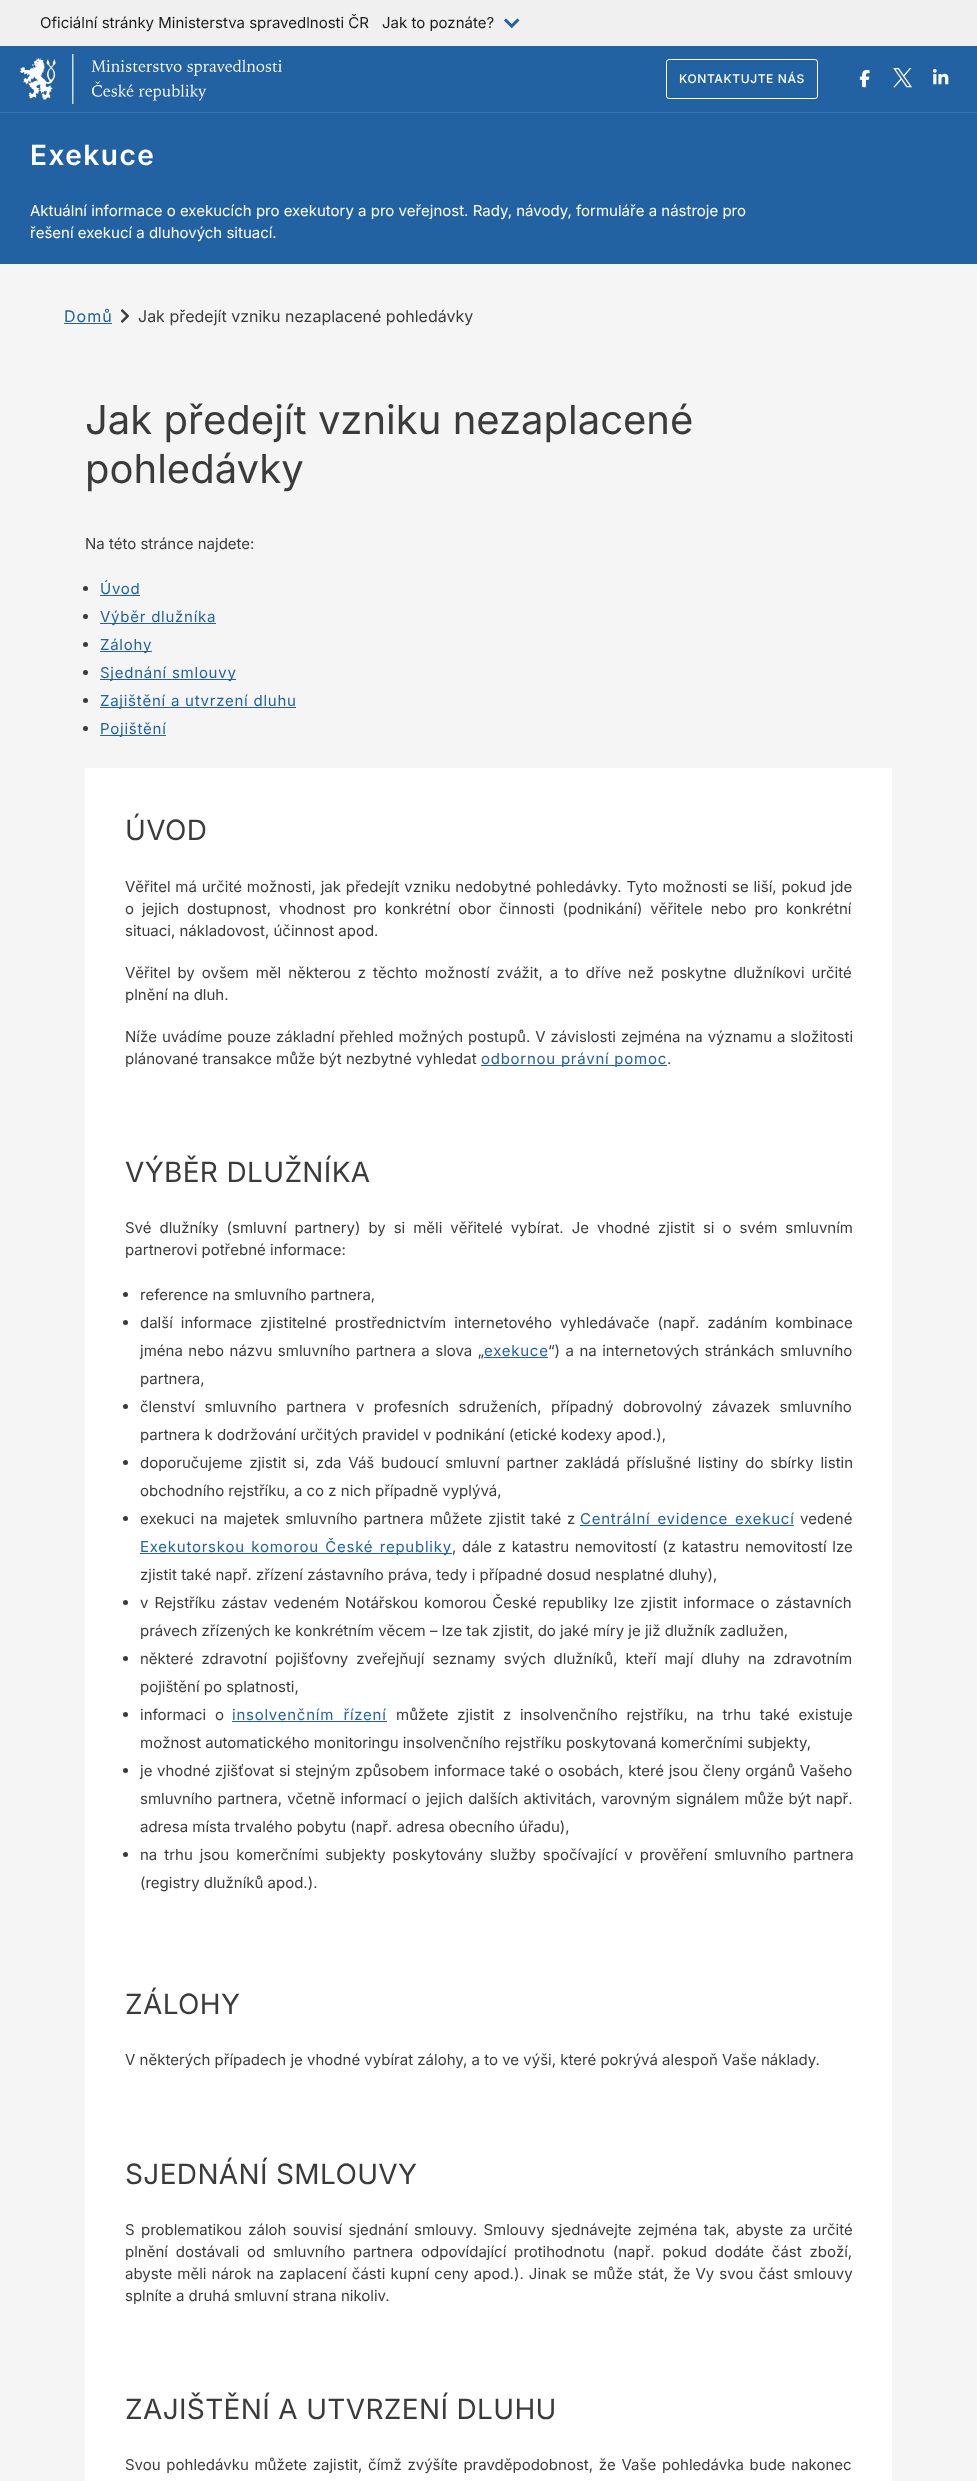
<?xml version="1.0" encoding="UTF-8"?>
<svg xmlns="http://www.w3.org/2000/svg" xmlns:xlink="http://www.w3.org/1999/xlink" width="977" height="2481">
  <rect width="100%" height="100%" fill="#f5f5f5" />
  <rect width="977" height="46" fill="#f0f0f0" />
  <image x="504" y="18" width="16" height="11" xlink:href="image1.png" />
  <rect y="46" width="977" height="218" fill="#2362a2" />
  <image x="20" y="54" width="262" height="50" xlink:href="image2.png" />
  <rect x="666.5" y="59.5" width="151" height="39" rx="2.5" fill="none" stroke="#ffffff" />
  <image x="859" y="69" width="11" height="19" xlink:href="image3.png" />
  <image x="893" y="68" width="19" height="20" xlink:href="image4.png" />
  <image x="933" y="69" width="16" height="16" xlink:href="image5.png" />
  <rect y="112" width="977" height="1" fill="#3077b7" />
  <rect x="64" y="323" width="48" height="1" fill="#2362a2" />
  <image x="120" y="309" width="10" height="14" xlink:href="image6.png" />
  <circle cx="85.5" cy="588.5" r="2.5" fill="#3b3b3b" />
  <rect x="100" y="595" width="40" height="1" fill="#2362a2" />
  <circle cx="85.5" cy="616.5" r="2.5" fill="#3b3b3b" />
  <rect x="100" y="623" width="116" height="1" fill="#2362a2" />
  <circle cx="85.5" cy="644.5" r="2.5" fill="#3b3b3b" />
  <rect x="100" y="651" width="52" height="1" fill="#2362a2" />
  <circle cx="85.5" cy="672.5" r="2.5" fill="#3b3b3b" />
  <rect x="100" y="679" width="136" height="1" fill="#2362a2" />
  <circle cx="85.5" cy="700.5" r="2.5" fill="#3b3b3b" />
  <rect x="100" y="707" width="196" height="1" fill="#2362a2" />
  <circle cx="85.5" cy="728.5" r="2.5" fill="#3b3b3b" />
  <rect x="100" y="735" width="66" height="1" fill="#2362a2" />
  <rect x="85" y="768" width="807" height="1713" fill="#ffffff" />
  <rect x="481" y="1065" width="186" height="1" fill="#2362a2" />
  <circle cx="125.5" cy="1294.5" r="2.5" fill="#3b3b3b" />
  <circle cx="125.5" cy="1322.5" r="2.5" fill="#3b3b3b" />
  <rect x="484" y="1357" width="64" height="1" fill="#2362a2" />
  <circle cx="125.5" cy="1406.5" r="2.5" fill="#3b3b3b" />
  <circle cx="125.5" cy="1462.5" r="2.5" fill="#3b3b3b" />
  <circle cx="125.5" cy="1518.5" r="2.5" fill="#3b3b3b" />
  <rect x="580" y="1525" width="214" height="1" fill="#2362a2" />
  <rect x="140" y="1553" width="312" height="1" fill="#2362a2" />
  <circle cx="125.5" cy="1602.5" r="2.5" fill="#3b3b3b" />
  <circle cx="125.5" cy="1658.5" r="2.5" fill="#3b3b3b" />
  <circle cx="125.5" cy="1714.5" r="2.5" fill="#3b3b3b" />
  <rect x="232" y="1721" width="155" height="1" fill="#2362a2" />
  <circle cx="125.5" cy="1770.5" r="2.5" fill="#3b3b3b" />
  <circle cx="125.5" cy="1854.5" r="2.5" fill="#3b3b3b" />
  <text x="40" y="28" style="font-family: Inter; font-size: 15px; fill: #1b1b1b">Oficiální stránky Ministerstva spravedlnosti ČR</text>
  <text x="382" y="28" style="font-family: Inter; font-size: 15px; fill: #1b1b1b">Jak to poznáte?</text>
  <text x="679" y="83" style="font-family: Inter; font-size: 12px; font-weight: 500; letter-spacing: 0.6px; fill: #ffffff">KONTAKTUJTE NÁS</text>
  <text x="30" y="165" style="font-family: Inter; font-size: 28px; font-weight: 600; letter-spacing: 1.5px; fill: #ffffff">Exekuce</text>
  <text x="30" y="216" style="font-family: Inter; font-size: 15px; fill: #ffffff">Aktuální informace o exekucích pro exekutory a pro veřejnost. Rady, návody, formuláře a nástroje pro</text>
  <text x="30" y="238" style="font-family: Inter; font-size: 15px; fill: #ffffff">řešení exekucí a dluhových situací.</text>
  <text x="64" y="322" style="font-family: Inter; font-size: 16px; letter-spacing: 1px; fill: #2362a2">Domů</text>
  <text x="138" y="322" style="font-family: Inter; font-size: 16px; fill: #3b3b3b">Jak předejít vzniku nezaplacené pohledávky</text>
  <text x="85" y="434" style="font-family: Inter; font-size: 40px; fill: #3b3b3b">Jak předejít vzniku nezaplacené</text>
  <text x="85" y="483" style="font-family: Inter; font-size: 40px; fill: #3b3b3b">pohledávky</text>
  <text x="85" y="549" style="font-family: Inter; font-size: 15px; fill: #3b3b3b">Na této stránce najdete:</text>
  <text x="100" y="594" style="font-family: Inter; font-size: 15px; letter-spacing: 0.75px; fill: #2362a2">Úvod</text>
  <text x="100" y="622" style="font-family: Inter; font-size: 15px; letter-spacing: 0.75px; fill: #2362a2">Výběr dlužníka</text>
  <text x="100" y="650" style="font-family: Inter; font-size: 15px; letter-spacing: 0.75px; fill: #2362a2">Zálohy</text>
  <text x="100" y="678" style="font-family: Inter; font-size: 15px; letter-spacing: 0.75px; fill: #2362a2">Sjednání smlouvy</text>
  <text x="100" y="706" style="font-family: Inter; font-size: 15px; letter-spacing: 0.75px; fill: #2362a2">Zajištění a utvrzení dluhu</text>
  <text x="100" y="734" style="font-family: Inter; font-size: 15px; letter-spacing: 0.75px; fill: #2362a2">Pojištění</text>
  <text x="125" y="840" style="font-family: Inter; font-size: 28px; letter-spacing: 0.35px; fill: #3b3b3b">ÚVOD</text>
  <text x="125" y="892" word-spacing="0.6" style="font-family: Inter; font-size: 15px; fill: #3b3b3b">Věřitel má určité možnosti, jak předejít vzniku nedobytné pohledávky. Tyto možnosti se liší, pokud jde</text>
  <text x="125" y="914" word-spacing="3.75" style="font-family: Inter; font-size: 15px; fill: #3b3b3b">o jejich dostupnost, vhodnost pro konkrétní obor činnosti (podnikání) věřitele nebo pro konkrétní</text>
  <text x="125" y="936" style="font-family: Inter; font-size: 15px; fill: #3b3b3b">situaci, nákladovost, účinnost apod.</text>
  <text x="125" y="978" word-spacing="2.75" style="font-family: Inter; font-size: 15px; fill: #3b3b3b">Věřitel by ovšem měl některou z těchto možností zvážit, a to dříve než poskytne dlužníkovi určité</text>
  <text x="125" y="1000" style="font-family: Inter; font-size: 15px; fill: #3b3b3b">plnění na dluh.</text>
  <text x="125" y="1042" word-spacing="0.7" style="font-family: Inter; font-size: 15px; fill: #3b3b3b">Níže uvádíme pouze základní přehled možných postupů. V závislosti zejména na významu a složitosti</text>
  <text x="125" y="1064" style="font-family: Inter; font-size: 15px; fill: #3b3b3b">plánované transakce může být nezbytné vyhledat</text>
  <text x="481" y="1064" style="font-family: Inter; font-size: 15px; letter-spacing: 0.75px; fill: #2362a2">odbornou právní pomoc</text>
  <text x="667" y="1064" style="font-family: Inter; font-size: 15px; fill: #3b3b3b">.</text>
  <text x="125" y="1182" style="font-family: Inter; font-size: 28px; letter-spacing: 0.35px; fill: #3b3b3b">VÝBĚR DLUŽNÍKA</text>
  <text x="125" y="1233" word-spacing="3.75" style="font-family: Inter; font-size: 15px; fill: #3b3b3b">Své dlužníky (smluvní partnery) by si měli věřitelé vybírat. Je vhodné zjistit si o svém smluvním</text>
  <text x="125" y="1255" style="font-family: Inter; font-size: 15px; fill: #3b3b3b">partnerovi potřebné informace:</text>
  <text x="140" y="1300" style="font-family: Inter; font-size: 15px; fill: #3b3b3b">reference na smluvního partnera,</text>
  <text x="140" y="1328" word-spacing="3.75" style="font-family: Inter; font-size: 15px; fill: #3b3b3b">další informace zjistitelné prostřednictvím internetového vyhledávače (např. zadáním kombinace</text>
  <text x="140" y="1356" word-spacing="1.25" style="font-family: Inter; font-size: 15px; fill: #3b3b3b">jména nebo názvu smluvního partnera a slova „</text>
  <text x="484" y="1356" style="font-family: Inter; font-size: 15px; letter-spacing: 0.75px; fill: #2362a2">exekuce</text>
  <text x="548" y="1356" word-spacing="1.25" style="font-family: Inter; font-size: 15px; fill: #3b3b3b">“) a na internetových stránkách smluvního</text>
  <text x="140" y="1384" style="font-family: Inter; font-size: 15px; fill: #3b3b3b">partnera,</text>
  <text x="140" y="1412" word-spacing="5.25" style="font-family: Inter; font-size: 15px; fill: #3b3b3b">členství smluvního partnera v profesních sdruženích, případný dobrovolný závazek smluvního</text>
  <text x="140" y="1440" style="font-family: Inter; font-size: 15px; fill: #3b3b3b">partnera k dodržování určitých pravidel v podnikání (etické kodexy apod.),</text>
  <text x="140" y="1468" word-spacing="2.6" style="font-family: Inter; font-size: 15px; fill: #3b3b3b">doporučujeme zjistit si, zda Váš budoucí smluvní partner zakládá příslušné listiny do sbírky listin</text>
  <text x="140" y="1496" style="font-family: Inter; font-size: 15px; fill: #3b3b3b">obchodního rejstříku, a co z nich případně vyplývá,</text>
  <text x="140" y="1524" word-spacing="1.75" style="font-family: Inter; font-size: 15px; fill: #3b3b3b">exekuci na majetek smluvního partnera můžete zjistit také z</text>
  <text x="580" y="1524" word-spacing="2" style="font-family: Inter; font-size: 15px; letter-spacing: 0.75px; fill: #2362a2">Centrální evidence exekucí</text>
  <text x="800" y="1524" style="font-family: Inter; font-size: 15px; fill: #3b3b3b">vedené</text>
  <text x="140" y="1552" word-spacing="1.5" style="font-family: Inter; font-size: 15px; letter-spacing: 0.75px; fill: #2362a2">Exekutorskou komorou České republiky</text>
  <text x="452" y="1552" word-spacing="1.5" style="font-family: Inter; font-size: 15px; fill: #3b3b3b">, dále z katastru nemovitostí (z katastru nemovitostí lze</text>
  <text x="140" y="1580" style="font-family: Inter; font-size: 15px; fill: #3b3b3b">zjistit také např. zřízení zástavního práva, tedy i případné dosud nesplatné dluhy),</text>
  <text x="140" y="1608" word-spacing="1.75" style="font-family: Inter; font-size: 15px; fill: #3b3b3b">v Rejstříku zástav vedeném Notářskou komorou České republiky lze zjistit informace o zástavních</text>
  <text x="140" y="1636" style="font-family: Inter; font-size: 15px; fill: #3b3b3b">právech zřízených ke konkrétním věcem – lze tak zjistit, do jaké míry je již dlužník zadlužen,</text>
  <text x="140" y="1664" word-spacing="3.75" style="font-family: Inter; font-size: 15px; fill: #3b3b3b">některé zdravotní pojišťovny zveřejňují seznamy svých dlužníků, kteří mají dluhy na zdravotním</text>
  <text x="140" y="1692" style="font-family: Inter; font-size: 15px; fill: #3b3b3b">pojištění po splatnosti,</text>
  <text x="140" y="1720" word-spacing="4.5" style="font-family: Inter; font-size: 15px; fill: #3b3b3b">informaci o</text>
  <text x="232" y="1720" word-spacing="4.5" style="font-family: Inter; font-size: 15px; letter-spacing: 0.75px; fill: #2362a2">insolvenčním řízení</text>
  <text x="396" y="1720" word-spacing="4.5" style="font-family: Inter; font-size: 15px; fill: #3b3b3b">můžete zjistit z insolvenčního rejstříku, na trhu také existuje</text>
  <text x="140" y="1748" style="font-family: Inter; font-size: 15px; fill: #3b3b3b">možnost automatického monitoringu insolvenčního rejstříku poskytovaná komerčními subjekty,</text>
  <text x="140" y="1776" word-spacing="0.4" style="font-family: Inter; font-size: 15px; fill: #3b3b3b">je vhodné zjišťovat si stejným způsobem informace také o osobách, které jsou členy orgánů Vašeho</text>
  <text x="140" y="1804" word-spacing="0.9" style="font-family: Inter; font-size: 15px; fill: #3b3b3b">smluvního partnera, včetně informací o jejich dalších aktivitách, varovným signálem může být např.</text>
  <text x="140" y="1832" style="font-family: Inter; font-size: 15px; fill: #3b3b3b">adresa místa trvalého pobytu (např. adresa obecního úřadu),</text>
  <text x="140" y="1860" word-spacing="2.75" style="font-family: Inter; font-size: 15px; fill: #3b3b3b">na trhu jsou komerčními subjekty poskytovány služby spočívající v prověření smluvního partnera</text>
  <text x="140" y="1888" style="font-family: Inter; font-size: 15px; fill: #3b3b3b">(registry dlužníků apod.).</text>
  <text x="125" y="2014" style="font-family: Inter; font-size: 28px; letter-spacing: 0.35px; fill: #3b3b3b">ZÁLOHY</text>
  <text x="125" y="2065" style="font-family: Inter; font-size: 15px; fill: #3b3b3b">V některých případech je vhodné vybírat zálohy, a to ve výši, které pokrývá alespoň Vaše náklady.</text>
  <text x="125" y="2184" style="font-family: Inter; font-size: 28px; letter-spacing: 0.35px; fill: #3b3b3b">SJEDNÁNÍ SMLOUVY</text>
  <text x="125" y="2235" word-spacing="2.1" style="font-family: Inter; font-size: 15px; fill: #3b3b3b">S problematikou záloh souvisí sjednání smlouvy. Smlouvy sjednávejte zejména tak, abyste za určité</text>
  <text x="125" y="2257" word-spacing="3.6" style="font-family: Inter; font-size: 15px; fill: #3b3b3b">plnění dostávali od smluvního partnera odpovídající protihodnotu (např. pokud dodáte část zboží,</text>
  <text x="125" y="2279" word-spacing="0.9" style="font-family: Inter; font-size: 15px; fill: #3b3b3b">abyste měli nárok na zaplacení části kupní ceny apod.). Jinak se může stát, že Vy svou část smlouvy</text>
  <text x="125" y="2301" style="font-family: Inter; font-size: 15px; fill: #3b3b3b">splníte a druhá smluvní strana nikoliv.</text>
  <text x="125" y="2419" style="font-family: Inter; font-size: 28px; letter-spacing: 0.35px; fill: #3b3b3b">ZAJIŠTĚNÍ A UTVRZENÍ DLUHU</text>
  <text x="125" y="2470" word-spacing="1.5" style="font-family: Inter; font-size: 15px; fill: #3b3b3b">Svou pohledávku můžete zajistit, čímž zvýšíte pravděpodobnost, že Vaše pohledávka bude nakonec</text>
</svg>
